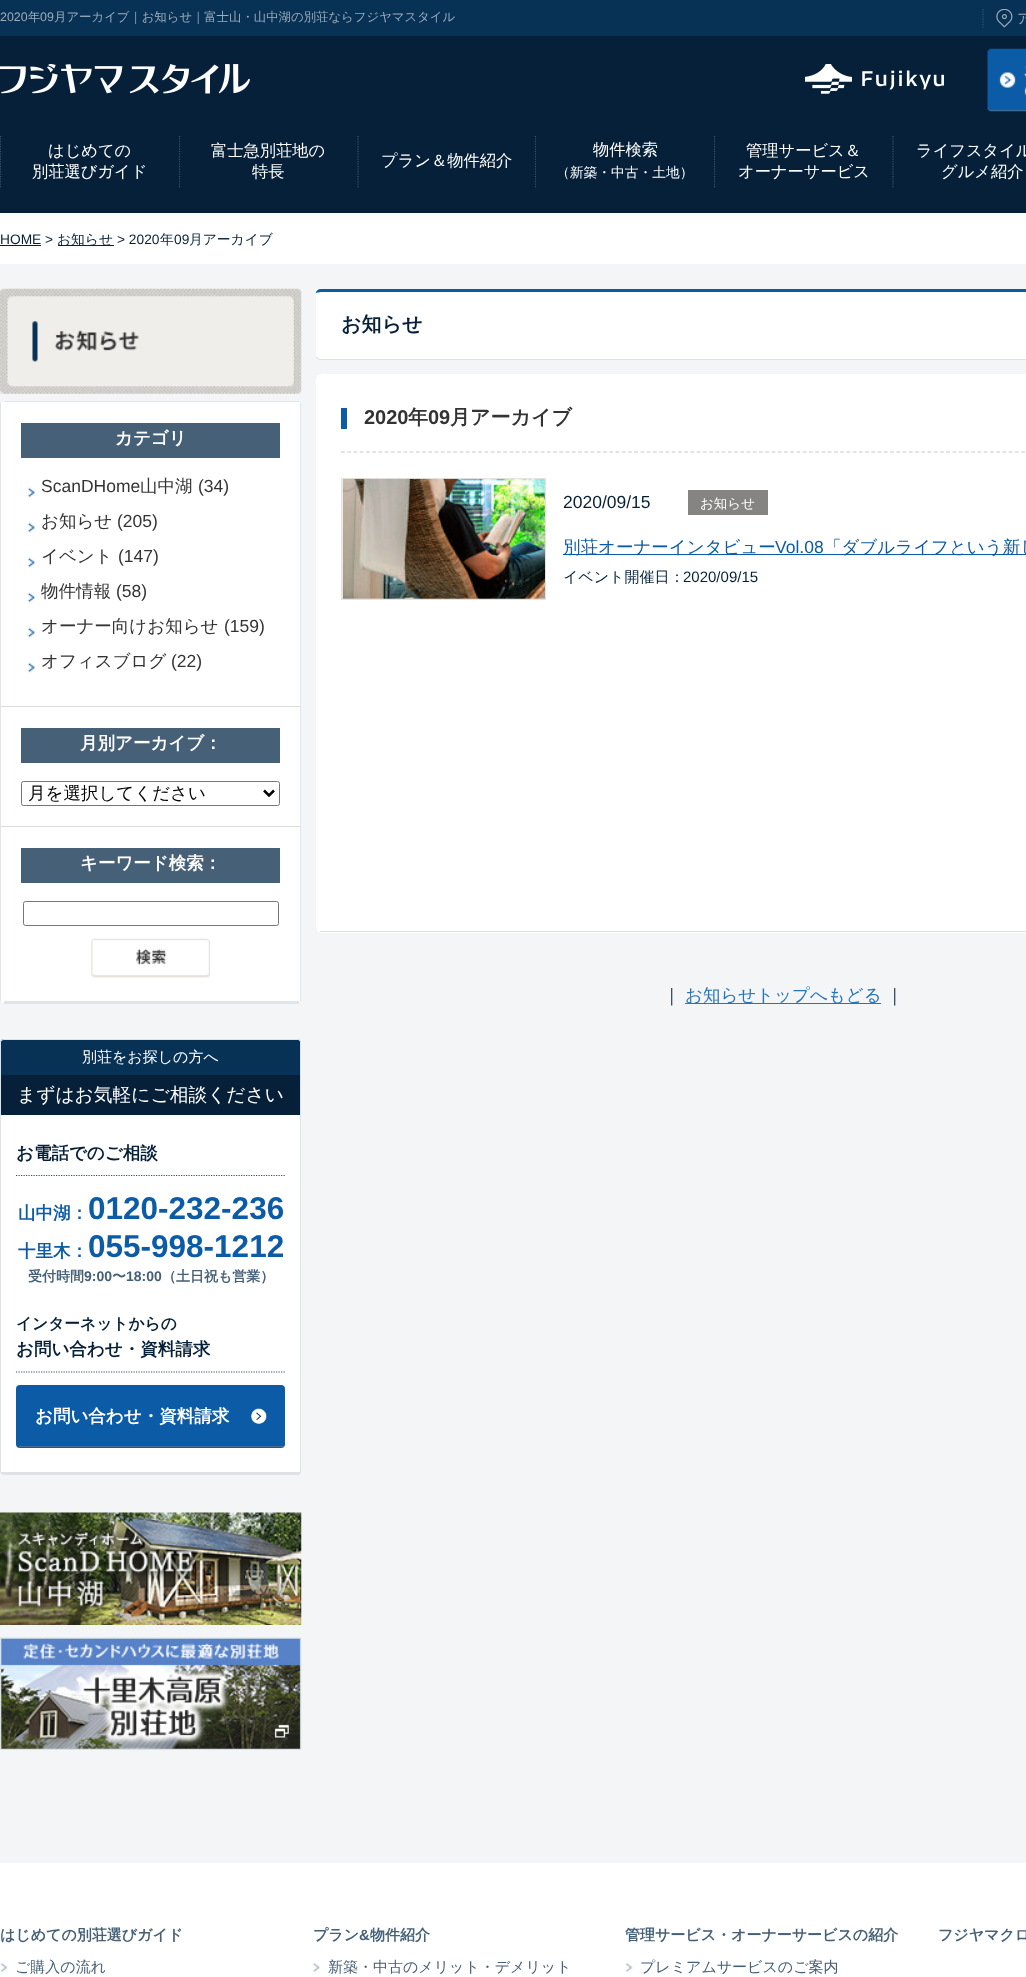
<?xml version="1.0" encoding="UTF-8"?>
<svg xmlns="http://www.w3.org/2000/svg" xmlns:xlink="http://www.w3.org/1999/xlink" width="1026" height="1977">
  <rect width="100%" height="100%" fill="#f4f5f6" />
  <rect y="36" width="1026" height="177" fill="#052038" />
  <rect width="1026" height="36" fill="#073155" />
  <path d="M 983 9 v 18.5" fill="none" stroke="#39556e" stroke-width="1.2" stroke-dasharray="1.25 1.25" />
  <image x="996" y="9" width="17" height="19" xlink:href="image1.png" />
  <image x="0" y="64" width="250" height="30" xlink:href="image2.png" />
  <image x="805" y="64" width="139" height="30" xlink:href="image3.png" />
  <image x="987" y="48" width="39" height="64" xlink:href="image4.png" />
  <path d="M 0.5 136 v 51.5" fill="none" stroke="#39556e" stroke-width="1.2" stroke-dasharray="1.25 1.25" />
  <path d="M 179.5 136 v 51.5" fill="none" stroke="#39556e" stroke-width="1.2" stroke-dasharray="1.25 1.25" />
  <path d="M 358 136 v 51.5" fill="none" stroke="#39556e" stroke-width="1.2" stroke-dasharray="1.25 1.25" />
  <path d="M 535.5 136 v 51.5" fill="none" stroke="#39556e" stroke-width="1.2" stroke-dasharray="1.25 1.25" />
  <path d="M 714.5 136 v 51.5" fill="none" stroke="#39556e" stroke-width="1.2" stroke-dasharray="1.25 1.25" />
  <path d="M 893 136 v 51.5" fill="none" stroke="#39556e" stroke-width="1.2" stroke-dasharray="1.25 1.25" />
  <rect y="213" width="1026" height="51" fill="#ffffff" />
  <rect y="245" width="41" height="1" fill="#052038" />
  <rect x="58" y="245" width="56" height="1" fill="#052038" />
  <image x="0" y="288" width="302" height="106" xlink:href="image5.png" />
  <rect y="401" width="301" height="603" rx="6" fill="#ffffff" />
  <rect x="4" y="401" width="295" height="1" fill="#dfe5e8" />
  <rect x="4" y="1001" width="295" height="3" fill="#dfe5e8" />
  <rect x="300" y="403" width="1" height="598" fill="#dfe5e8" />
  <rect y="403" width="1" height="598" fill="#dfe5e8" />
  <rect x="1" y="706" width="299" height="1" fill="#e0dcd7" />
  <rect x="21" y="423" width="259" height="35" fill="#466077" />
  <image x="27" y="487" width="8" height="11" xlink:href="image6.png" />
  <image x="27" y="522" width="8" height="11" xlink:href="image6.png" />
  <image x="27" y="557" width="8" height="11" xlink:href="image6.png" />
  <image x="27" y="592" width="8" height="11" xlink:href="image6.png" />
  <image x="27" y="627" width="8" height="11" xlink:href="image6.png" />
  <image x="27" y="662" width="8" height="11" xlink:href="image6.png" />
  <rect x="1" y="826" width="299" height="1" fill="#e0dcd7" />
  <rect x="21" y="728" width="259" height="35" fill="#466077" />
  <rect x="21.5" y="781.5" width="258" height="24" rx="2" fill="none" stroke="#767676" />
  <path d="M 264 790.5 l 5 5 l 5 -5" fill="none" stroke="#000000" stroke-width="2.5" />
  <rect x="21" y="848" width="259" height="35" fill="#466077" />
  <rect x="23.5" y="901.5" width="255" height="24" rx="2" fill="none" stroke="#767676" />
  <image x="91" y="938" width="119" height="40" xlink:href="image7.png" />
  <path d="M 4 1039 h 293 c 2 0 4 2 4 4 v 32 h -301 v -32 c 0 -2 2 -4 4 -4 z" fill="#073155" />
  <path d="M 4 1039 h 294 c 2 0 3 1 3 3 v 33 h -301 v -33 c 0 -2 2 -3 4 -3 z m 0 1 h 294 c 1 0 2 1 2 2 v 33 h -299 v -33 c 0 -1 1 -2 3 -2 z" fill="#dce2e6" fill-rule="evenodd" />
  <rect x="1" y="1075" width="299" height="40" fill="#052038" />
  <rect x="300" y="1075" width="1" height="40" fill="#dce2e6" />
  <rect y="1075" width="1" height="40" fill="#dce2e6" />
  <path d="M 0 1115 h 301 v 356 c 0 2 -2 4 -4 4 h -293 c -2 0 -4 -2 -4 -4 z" fill="#ffffff" />
  <path d="M 0 1115 h 301 v 356 c 0 2 -1 4 -3 4 h -294 c -2 0 -4 -2 -4 -4 z m 1 0 h 299 v 356 c 0 1 -1 1 -2 1 h -294 c -2 0 -3 0 -3 -1 z" fill="#dce2e6" fill-rule="evenodd" />
  <path d="M 16 1175.5 h 269" fill="none" stroke="#39556e" stroke-width="1.2" stroke-dasharray="1.25 1.25" />
  <path d="M 16 1372 h 269" fill="none" stroke="#39556e" stroke-width="1.2" stroke-dasharray="1.25 1.25" />
  <rect x="16" y="1385" width="269" height="63" rx="4" fill="#0c5ba6" />
  <image x="251" y="1408" width="16" height="16" xlink:href="image8.png" />
  <rect x="19" y="1446" width="265" height="1" fill="#476f94" />
  <image x="0" y="1512" width="302" height="113" xlink:href="image9.png" />
  <image x="0" y="1637" width="302" height="113" xlink:href="image10.png" />
  <rect x="316" y="289" width="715" height="71" rx="5" fill="#ffffff" />
  <path d="M 321 289 h 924 c 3 0 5 2 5 5 c 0 -1 -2 -2 -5 -2 h -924 c -2 0 -4 1 -5 1 c 0 -2 2 -4 5 -4 z" fill="#0c5ba6" />
  <path d="M 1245 360 c 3 0 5 -2 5 -5 c 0 2 -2 4 -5 4 h -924 c -2 0 -4 -1 -5 -3 c 0 3 3 4 5 4 z" fill="#dce2e6" />
  <rect x="316" y="374" width="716" height="559" rx="6" fill="#ffffff" />
  <rect x="320" y="931" width="706" height="1" fill="#dce2e6" />
  <rect x="341" y="408" width="6" height="21" fill="#0c5ba6" />
  <path d="M 341 452 h 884" fill="none" stroke="#cac8c4" stroke-width="1.2" stroke-dasharray="3.75 2.49" />
  <rect x="341.5" y="478.5" width="204" height="121" fill="none" stroke="#e6e3df" />
  <image x="342" y="478" width="203" height="121" xlink:href="image11.png" />
  <rect x="688" y="490" width="80" height="25" fill="#868482" />
  <rect x="563" y="554" width="463" height="1" fill="#0c5ba6" />
  <rect x="685" y="1003" width="196" height="1" fill="#2674bc" />
  <rect y="1863" width="1026" height="114" fill="#ffffff" />
  <image x="0" y="1962" width="8" height="11" xlink:href="image12.png" />
  <image x="313" y="1962" width="7" height="11" xlink:href="image13.png" />
  <image x="625" y="1962" width="8" height="11" xlink:href="image12.png" />
  <text x="0" y="21" style="font-family: Liberation Sans; font-size: 12.4px; fill: #9cadbb">2020</text>
  <text x="28" y="21" style="font-family: WenQuanYi Zen Hei; font-size: 12.4px; font-weight: 500; fill: #9cadbb">年</text>
  <text x="40" y="21" style="font-family: Liberation Sans; font-size: 12.4px; fill: #9cadbb">09</text>
  <text x="54" y="21" style="font-family: WenQuanYi Zen Hei; font-size: 12.4px; font-weight: 500; fill: #9cadbb">月アーカイブ｜お知らせ｜富士山・山中湖の別荘ならフジヤマスタイル</text>
  <text x="1017" y="23" style="font-family: WenQuanYi Zen Hei; font-size: 13.75px; font-weight: 500; fill: #9cadbb">ア</text>
  <text x="48" y="156" style="font-family: WenQuanYi Zen Hei; font-size: 16.25px; font-weight: 500; fill: #ffffff">はじめての</text>
  <text x="32" y="177" style="font-family: WenQuanYi Zen Hei; font-size: 16.25px; font-weight: 500; fill: #ffffff">別荘選びガイド</text>
  <text x="211" y="156" style="font-family: WenQuanYi Zen Hei; font-size: 16.25px; font-weight: 500; fill: #ffffff">富士急別荘地の</text>
  <text x="252" y="177" style="font-family: WenQuanYi Zen Hei; font-size: 16.25px; font-weight: 500; fill: #ffffff">特長</text>
  <text x="381" y="166" style="font-family: WenQuanYi Zen Hei; font-size: 16.25px; font-weight: 500; fill: #ffffff">プラン＆物件紹介</text>
  <text x="593" y="155" style="font-family: WenQuanYi Zen Hei; font-size: 16.25px; font-weight: 500; fill: #ffffff">物件検索</text>
  <text x="556" y="177" style="font-family: WenQuanYi Zen Hei; font-size: 13.75px; font-weight: 500; fill: #ffffff">（新築・中古・土地）</text>
  <text x="746" y="156" style="font-family: WenQuanYi Zen Hei; font-size: 16.25px; font-weight: 500; fill: #ffffff">管理サービス＆</text>
  <text x="738" y="177" style="font-family: WenQuanYi Zen Hei; font-size: 16.25px; font-weight: 500; fill: #ffffff">オーナーサービス</text>
  <text x="916" y="156" style="font-family: WenQuanYi Zen Hei; font-size: 16.25px; font-weight: 500; fill: #ffffff">ライフスタイル</text>
  <text x="941" y="177" style="font-family: WenQuanYi Zen Hei; font-size: 16.25px; font-weight: 500; fill: #ffffff">グルメ紹介</text>
  <text x="0" y="244" style="font-family: Liberation Sans; font-size: 13.75px; fill: #052038">HOME &gt;</text>
  <text x="57" y="244" style="font-family: WenQuanYi Zen Hei; font-size: 13.75px; font-weight: 500; fill: #052038">お知らせ</text>
  <text x="117" y="244" style="font-family: Liberation Sans; font-size: 13.75px; fill: #052038">&gt; 2020</text>
  <text x="160" y="244" style="font-family: WenQuanYi Zen Hei; font-size: 13.75px; font-weight: 500; fill: #052038">年</text>
  <text x="174" y="244" style="font-family: Liberation Sans; font-size: 13.75px; fill: #052038">09</text>
  <text x="189" y="244" style="font-family: WenQuanYi Zen Hei; font-size: 13.75px; font-weight: 500; fill: #052038">月アーカイブ</text>
  <text x="115" y="444" style="font-family: WenQuanYi Zen Hei; font-size: 17.5px; font-weight: bold; fill: #ffffff">カテゴリ</text>
  <text x="41" y="492" style="font-family: Liberation Sans; font-size: 17.5px; fill: #333333">ScanDHome</text>
  <text x="140" y="492" style="font-family: WenQuanYi Zen Hei; font-size: 17.5px; font-weight: 500; fill: #333333">山中湖</text>
  <text x="198" y="492" style="font-family: Liberation Sans; font-size: 17.5px; fill: #333333">(34)</text>
  <text x="41" y="527" style="font-family: WenQuanYi Zen Hei; font-size: 17.5px; font-weight: 500; fill: #333333">お知らせ</text>
  <text x="117" y="527" style="font-family: Liberation Sans; font-size: 17.5px; fill: #333333">(205)</text>
  <text x="41" y="562" style="font-family: WenQuanYi Zen Hei; font-size: 17.5px; font-weight: 500; fill: #333333">イベント</text>
  <text x="118" y="562" style="font-family: Liberation Sans; font-size: 17.5px; fill: #333333">(147)</text>
  <text x="41" y="597" style="font-family: WenQuanYi Zen Hei; font-size: 17.5px; font-weight: 500; fill: #333333">物件情報</text>
  <text x="116" y="597" style="font-family: Liberation Sans; font-size: 17.5px; fill: #333333">(58)</text>
  <text x="41" y="632" style="font-family: WenQuanYi Zen Hei; font-size: 17.5px; font-weight: 500; fill: #333333">オーナー向けお知らせ</text>
  <text x="224" y="632" style="font-family: Liberation Sans; font-size: 17.5px; fill: #333333">(159)</text>
  <text x="41" y="667" style="font-family: WenQuanYi Zen Hei; font-size: 17.5px; font-weight: 500; fill: #333333">オフィスブログ</text>
  <text x="171" y="667" style="font-family: Liberation Sans; font-size: 17.5px; fill: #333333">(22)</text>
  <text x="80" y="749" style="font-family: WenQuanYi Zen Hei; font-size: 17.5px; font-weight: bold; fill: #ffffff">月別アーカイブ：</text>
  <text x="28" y="799" style="font-family: WenQuanYi Zen Hei; font-size: 17.5px; font-weight: 500; fill: #000000">月を選択してください</text>
  <text x="80" y="869" style="font-family: WenQuanYi Zen Hei; font-size: 17.5px; font-weight: bold; fill: #ffffff">キーワード検索：</text>
  <text x="82" y="1062" style="font-family: WenQuanYi Zen Hei; font-size: 15px; font-weight: 500; fill: #ffffff">別荘をお探しの方へ</text>
  <text x="17" y="1101" style="font-family: WenQuanYi Zen Hei; font-size: 18.75px; font-weight: 500; fill: #ffffff">まずはお気軽にご相談ください</text>
  <text x="16" y="1159" style="font-family: WenQuanYi Zen Hei; font-size: 17.5px; font-weight: bold; fill: #052038">お電話でのご相談</text>
  <text x="18" y="1219" style="font-family: WenQuanYi Zen Hei; font-size: 17.5px; font-weight: bold; fill: #0c5ba6">山中湖：</text>
  <text x="88" y="1219" style="font-family: Liberation Sans; font-size: 31.5px; font-weight: bold; fill: #0c5ba6">0120-232-236</text>
  <text x="18" y="1257" style="font-family: WenQuanYi Zen Hei; font-size: 17.5px; font-weight: bold; fill: #0c5ba6">十里木：</text>
  <text x="88" y="1257" style="font-family: Liberation Sans; font-size: 31.5px; font-weight: bold; fill: #0c5ba6">055-998-1212</text>
  <text x="28" y="1281" style="font-family: WenQuanYi Zen Hei; font-size: 14px; font-weight: bold; fill: #456077">受付時間</text>
  <text x="84" y="1281" style="font-family: Liberation Sans; font-size: 14px; font-weight: bold; fill: #456077">9:00</text>
  <text x="112" y="1281" style="font-family: WenQuanYi Zen Hei; font-size: 14px; font-weight: bold; fill: #456077">〜</text>
  <text x="126" y="1281" style="font-family: Liberation Sans; font-size: 14px; font-weight: bold; fill: #456077">18:00</text>
  <text x="162" y="1281" style="font-family: WenQuanYi Zen Hei; font-size: 14px; font-weight: bold; fill: #456077">（土日祝も営業）</text>
  <text x="16" y="1329" style="font-family: WenQuanYi Zen Hei; font-size: 15.75px; font-weight: bold; fill: #052038">インターネットからの</text>
  <text x="16" y="1355" style="font-family: WenQuanYi Zen Hei; font-size: 17.5px; font-weight: bold; fill: #052038">お問い合わせ・資料請求</text>
  <text x="35" y="1422" style="font-family: WenQuanYi Zen Hei; font-size: 17.5px; font-weight: bold; fill: #ffffff">お問い合わせ・資料請求</text>
  <text x="341" y="331" style="font-family: WenQuanYi Zen Hei; font-size: 20px; font-weight: bold; fill: #052038">お知らせ</text>
  <text x="364" y="424" style="font-family: Liberation Sans; font-size: 20px; font-weight: bold; fill: #333333">2020</text>
  <text x="408" y="424" style="font-family: WenQuanYi Zen Hei; font-size: 20px; font-weight: bold; fill: #333333">年</text>
  <text x="428" y="424" style="font-family: Liberation Sans; font-size: 20px; font-weight: bold; fill: #333333">09</text>
  <text x="450" y="424" style="font-family: WenQuanYi Zen Hei; font-size: 20px; font-weight: bold; fill: #333333">月アーカイブ</text>
  <text x="563" y="508" style="font-family: Liberation Sans; font-size: 17.5px; fill: #052038">2020/09/15</text>
  <text x="700" y="508" style="font-family: WenQuanYi Zen Hei; font-size: 13.5px; font-weight: 500; fill: #ffffff">お知らせ</text>
  <text x="563" y="553" style="font-family: WenQuanYi Zen Hei; font-size: 17.5px; font-weight: 500; fill: #0c5ba6">別荘オーナーインタビュー</text>
  <text x="775" y="553" style="font-family: Liberation Sans; font-size: 17.5px; fill: #0c5ba6">Vol.08</text>
  <text x="824" y="553" style="font-family: WenQuanYi Zen Hei; font-size: 17.5px; font-weight: 500; fill: #0c5ba6">「ダブルライフという新し</text>
  <text x="563" y="582" style="font-family: WenQuanYi Zen Hei; font-size: 15px; font-weight: 500; fill: #052038">イベント開催日：</text>
  <text x="683" y="582" style="font-family: Liberation Sans; font-size: 15px; fill: #052038">2020/09/15</text>
  <text x="663" y="1001" style="font-family: WenQuanYi Zen Hei; font-size: 17.5px; font-weight: 500; fill: #052038">｜</text>
  <text x="685" y="1001" style="font-family: WenQuanYi Zen Hei; font-size: 17.5px; font-weight: 500; fill: #2674bc">お知らせトップへもどる</text>
  <text x="886" y="1001" style="font-family: WenQuanYi Zen Hei; font-size: 17.5px; font-weight: 500; fill: #052038">｜</text>
  <text x="0" y="1940" style="font-family: WenQuanYi Zen Hei; font-size: 15px; font-weight: bold; fill: #456077">はじめての別荘選びガイド</text>
  <text x="15" y="1972" style="font-family: WenQuanYi Zen Hei; font-size: 15px; font-weight: 500; fill: #456077">ご購入の流れ</text>
  <text x="313" y="1940" style="font-family: WenQuanYi Zen Hei; font-size: 15px; font-weight: bold; fill: #456077">プラン</text>
  <text x="359" y="1940" style="font-family: Liberation Sans; font-size: 15px; font-weight: bold; fill: #456077">&amp;</text>
  <text x="370" y="1940" style="font-family: WenQuanYi Zen Hei; font-size: 15px; font-weight: bold; fill: #456077">物件紹介</text>
  <text x="328" y="1972" style="font-family: WenQuanYi Zen Hei; font-size: 15px; font-weight: 500; fill: #456077">新築・中古のメリット・デメリット</text>
  <text x="625" y="1940" style="font-family: WenQuanYi Zen Hei; font-size: 15px; font-weight: bold; fill: #456077">管理サービス・オーナーサービスの紹介</text>
  <text x="640" y="1972" style="font-family: WenQuanYi Zen Hei; font-size: 15px; font-weight: 500; fill: #456077">プレミアムサービスのご案内</text>
  <text x="938" y="1940" style="font-family: WenQuanYi Zen Hei; font-size: 15px; font-weight: bold; fill: #456077">フジヤマクロ</text>
</svg>
